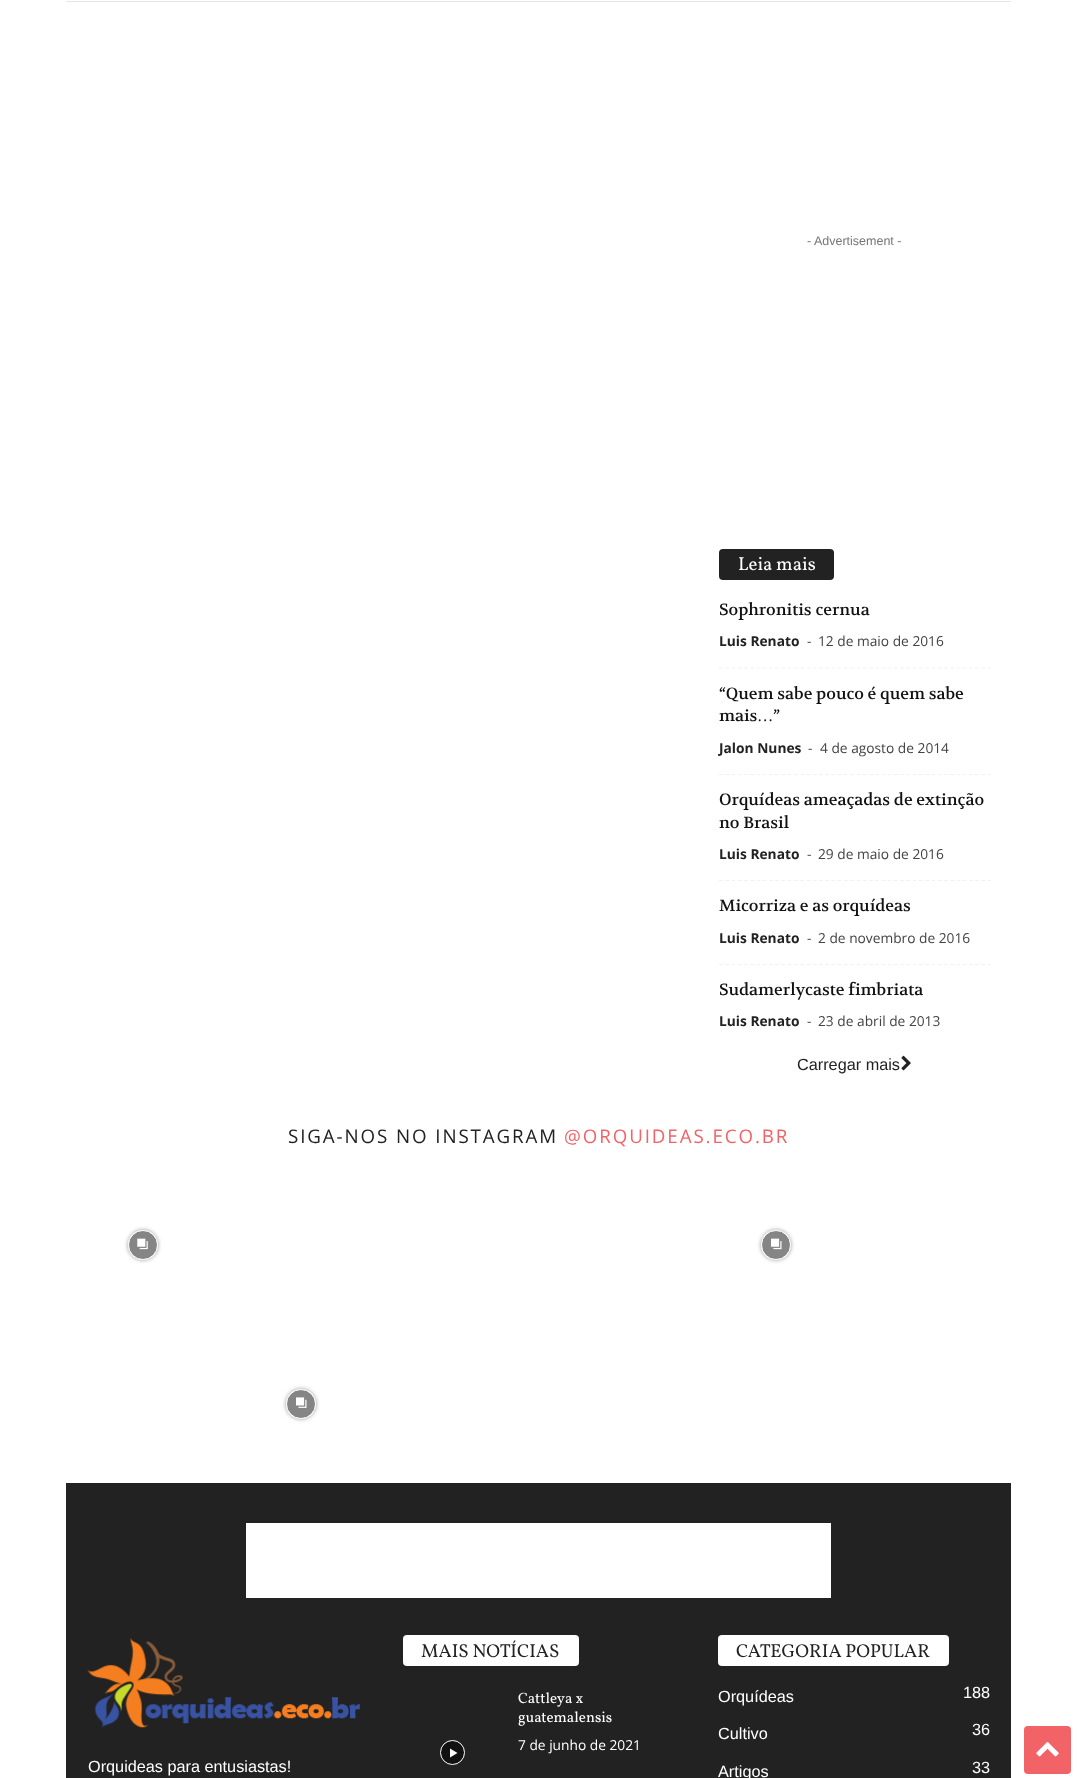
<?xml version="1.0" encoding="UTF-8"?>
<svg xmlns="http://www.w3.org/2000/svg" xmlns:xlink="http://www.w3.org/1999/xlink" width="1077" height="1778">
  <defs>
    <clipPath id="clip1"><path d="M 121 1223 h 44 v 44 h -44 z m 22 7 c 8.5 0 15 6.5 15 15 c 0 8.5 -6.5 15 -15 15 c -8.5 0 -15 -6.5 -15 -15 c 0 -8.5 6.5 -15 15 -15 z" clip-rule="evenodd" /></clipPath>
    <clipPath id="clip2"><path d="M 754 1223 h 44 v 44 h -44 z m 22 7 c 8.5 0 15 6.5 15 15 c 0 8.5 -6.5 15 -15 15 c -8.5 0 -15 -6.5 -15 -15 c 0 -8.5 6.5 -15 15 -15 z" clip-rule="evenodd" /></clipPath>
    <clipPath id="clip3"><path d="M 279 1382 h 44 v 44 h -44 z m 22 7 c 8.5 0 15 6.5 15 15 c 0 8.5 -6.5 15 -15 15 c -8.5 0 -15 -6.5 -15 -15 c 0 -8.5 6.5 -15 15 -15 z" clip-rule="evenodd" /></clipPath>
  </defs>
  <rect width="100%" height="100%" fill="#ffffff" />
  <rect x="66" y="1" width="945" height="1" fill="#e6e6e6" />
  <rect x="719" y="549" width="115" height="31" rx="4" fill="#222222" />
  <path d="M 719 668 h 272" fill="none" stroke="#f1f1f1" stroke-width="1.2" stroke-dasharray="3.75 2.5" />
  <path d="M 719 774.5 h 272" fill="none" stroke="#f1f1f1" stroke-width="1.2" stroke-dasharray="3.75 2.5" />
  <path d="M 719 880.5 h 272" fill="none" stroke="#f1f1f1" stroke-width="1.2" stroke-dasharray="3.75 2.5" />
  <path d="M 719 964.5 h 272" fill="none" stroke="#f1f1f1" stroke-width="1.2" stroke-dasharray="3.75 2.5" />
  <image x="901" y="1055" width="10" height="16" xlink:href="image1.png" />
  <g clip-path="url(#clip1)">
    <rect x="128" y="1230" width="30" height="30" rx="15" fill="#000000" fill-opacity="0.4" filter="blur(2px)" />
  </g>
  <circle cx="143" cy="1245" r="14.5" fill="#000000" fill-opacity="0.48" stroke="#ffffff" />
  <image x="137" y="1238" width="11" height="12" xlink:href="image2.png" />
  <g clip-path="url(#clip2)">
    <rect x="761" y="1230" width="30" height="30" rx="15" fill="#000000" fill-opacity="0.4" filter="blur(2px)" />
  </g>
  <circle cx="776" cy="1245" r="14.5" fill="#000000" fill-opacity="0.48" stroke="#ffffff" />
  <image x="771" y="1238" width="11" height="12" xlink:href="image3.png" />
  <g clip-path="url(#clip3)">
    <rect x="286" y="1389" width="30" height="30" rx="15" fill="#000000" fill-opacity="0.4" filter="blur(2px)" />
  </g>
  <circle cx="301" cy="1404" r="14.5" fill="#000000" fill-opacity="0.48" stroke="#ffffff" />
  <image x="296" y="1397" width="11" height="11" xlink:href="image4.png" />
  <rect x="66" y="1483" width="945" height="295" fill="#222222" />
  <rect x="246" y="1523" width="585" height="75" fill="#ffffff" />
  <image x="87" y="1637" width="273" height="91" xlink:href="image5.png" />
  <rect x="403" y="1635" width="176" height="31" rx="4" fill="#ffffff" />
  <circle cx="452.5" cy="1752.5" r="12" fill="#000000" fill-opacity="0.48" stroke="#ffffff" />
  <path d="M 450 1748.5 v 9 l 7.5 -4.5 z" fill="#ffffff" />
  <rect x="718" y="1635" width="231" height="31" rx="4" fill="#ffffff" />
  <rect x="1024" y="1726" width="47" height="48" rx="4" fill="#f26367" />
  <image x="1036" y="1742" width="23" height="15" xlink:href="image6.png" />
  <text x="807" y="245" style="font-family: Liberation Sans; font-size: 12.5px; fill: #767676">- Advertisement -</text>
  <text x="738" y="570" style="font-family: Vollkorn; font-size: 18.75px; fill: #ffffff">Leia mais</text>
  <text x="719" y="615" style="font-family: Volkhov; font-size: 16.25px; fill: #111111">Sophronitis cernua</text>
  <text x="719" y="646" style="font-family: Open Sans; font-size: 13.75px; font-weight: bold; fill: #222222">Luis Renato</text>
  <text x="807" y="646" style="font-family: Open Sans; font-size: 13.75px; fill: #444444">-</text>
  <text x="818" y="646" style="font-family: Open Sans; font-size: 13.75px; fill: #444444">12 de maio de 2016</text>
  <text x="719" y="699" style="font-family: Volkhov; font-size: 16.25px; fill: #111111">“Quem sabe pouco é quem sabe</text>
  <text x="719" y="721" style="font-family: Volkhov; font-size: 16.25px; fill: #111111">mais</text>
  <text x="773" y="721" style="font-family: Volkhov; font-size: 16.25px; fill: #111111">”</text>
  <text x="757" y="721" style="font-family: Liberation Serif; font-size: 16.25px; fill: #111111">…</text>
  <text x="719" y="753" style="font-family: Open Sans; font-size: 13.75px; font-weight: bold; fill: #222222">Jalon Nunes</text>
  <text x="808" y="753" style="font-family: Open Sans; font-size: 13.75px; fill: #444444">-</text>
  <text x="820" y="753" style="font-family: Open Sans; font-size: 13.75px; fill: #444444">4 de agosto de 2014</text>
  <text x="719" y="805" style="font-family: Volkhov; font-size: 16.25px; fill: #111111">Orquídeas ameaçadas de extinção</text>
  <text x="719" y="828" style="font-family: Volkhov; font-size: 16.25px; fill: #111111">no Brasil</text>
  <text x="719" y="859" style="font-family: Open Sans; font-size: 13.75px; font-weight: bold; fill: #222222">Luis Renato</text>
  <text x="807" y="859" style="font-family: Open Sans; font-size: 13.75px; fill: #444444">-</text>
  <text x="818" y="859" style="font-family: Open Sans; font-size: 13.75px; fill: #444444">29 de maio de 2016</text>
  <text x="719" y="911" style="font-family: Volkhov; font-size: 16.25px; fill: #111111">Micorriza e as orquídeas</text>
  <text x="719" y="943" style="font-family: Open Sans; font-size: 13.75px; font-weight: bold; fill: #222222">Luis Renato</text>
  <text x="807" y="943" style="font-family: Open Sans; font-size: 13.75px; fill: #444444">-</text>
  <text x="818" y="943" style="font-family: Open Sans; font-size: 13.75px; fill: #444444">2 de novembro de 2016</text>
  <text x="719" y="995" style="font-family: Volkhov; font-size: 16.25px; fill: #111111">Sudamerlycaste fimbriata</text>
  <text x="719" y="1026" style="font-family: Open Sans; font-size: 13.75px; font-weight: bold; fill: #222222">Luis Renato</text>
  <text x="807" y="1026" style="font-family: Open Sans; font-size: 13.75px; fill: #444444">-</text>
  <text x="818" y="1026" style="font-family: Open Sans; font-size: 13.75px; fill: #444444">23 de abril de 2013</text>
  <text x="797" y="1070" style="font-family: Liberation Sans; font-size: 16.25px; fill: #222222">Carregar mais</text>
  <text x="288" y="1143" style="font-family: Open Sans; font-size: 18.75px; letter-spacing: 1.9px; fill: #222222">SIGA-NOS NO INSTAGRAM</text>
  <text x="564" y="1143" style="font-family: Open Sans; font-size: 18.75px; letter-spacing: 1.9px; fill: #f26367">@ORQUIDEAS.ECO.BR</text>
  <text x="88" y="1772" style="font-family: Liberation Sans; font-size: 16.25px; fill: #ffffff">Orquideas para entusiastas!</text>
  <text x="421" y="1657" style="font-family: Vollkorn; font-size: 18.75px; fill: #222222">MAIS NOTÍCIAS</text>
  <text x="518" y="1703" style="font-family: Vollkorn; font-size: 15px; fill: #ffffff">Cattleya x</text>
  <text x="518" y="1722" style="font-family: Vollkorn; font-size: 15px; fill: #ffffff">guatemalensis</text>
  <text x="518" y="1750" style="font-family: Open Sans; font-size: 13.75px; fill: #ffffff">7 de junho de 2021</text>
  <text x="736" y="1657" style="font-family: Vollkorn; font-size: 18.75px; fill: #222222">CATEGORIA POPULAR</text>
  <text x="718" y="1702" style="font-family: Liberation Sans; font-size: 16.25px; fill: #ffffff">Orquídeas</text>
  <text x="963" y="1698" style="font-family: Liberation Sans; font-size: 16.25px; fill: #ffffff">188</text>
  <text x="718" y="1739" style="font-family: Liberation Sans; font-size: 16.25px; fill: #ffffff">Cultivo</text>
  <text x="972" y="1735" style="font-family: Liberation Sans; font-size: 16.25px; fill: #ffffff">36</text>
  <text x="718" y="1777" style="font-family: Liberation Sans; font-size: 16.25px; fill: #ffffff">Artigos</text>
  <text x="972" y="1773" style="font-family: Liberation Sans; font-size: 16.25px; fill: #ffffff">33</text>
</svg>
